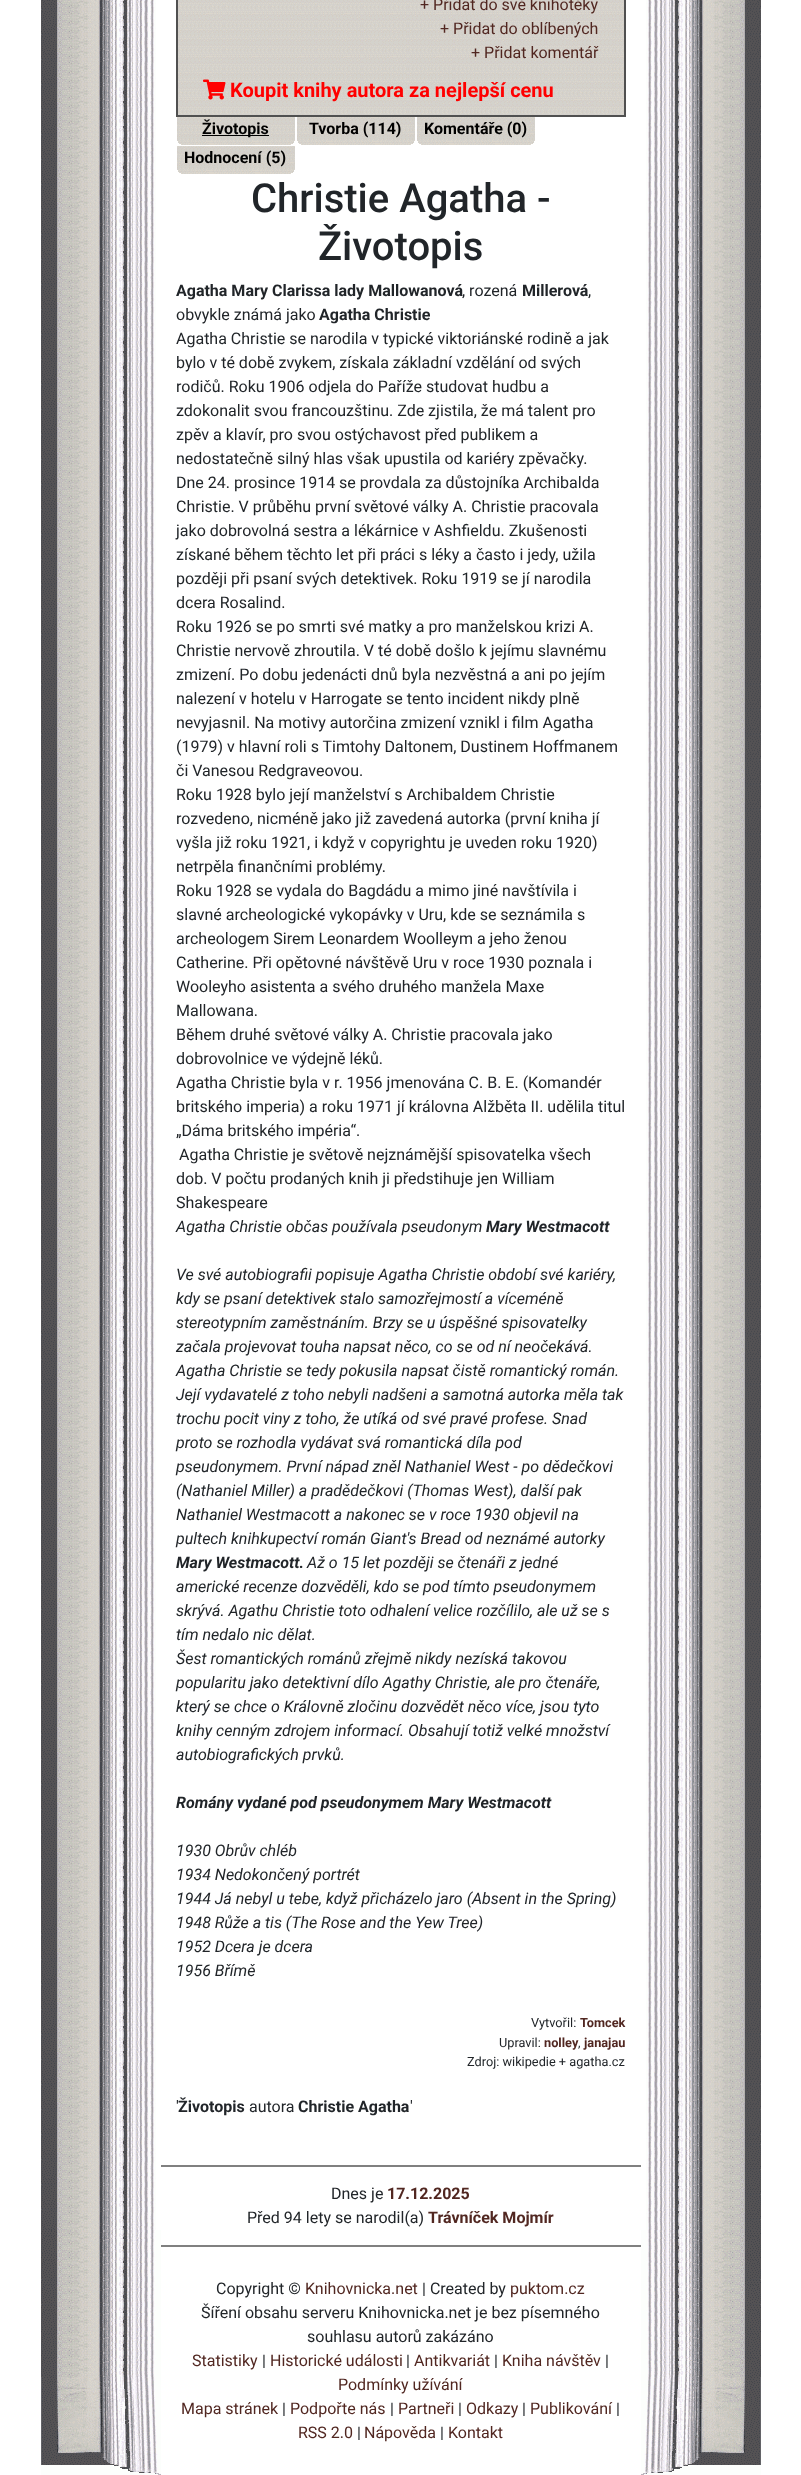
<?xml version="1.0" encoding="UTF-8"?>
<svg xmlns="http://www.w3.org/2000/svg" xmlns:xlink="http://www.w3.org/1999/xlink" width="801" height="2475">
  <rect width="100%" height="100%" fill="#ffffff" />
  <image x="41" y="0" width="115" height="2135" xlink:href="image1.png" />
  <image x="178" y="0" width="446" height="115" xlink:href="image2.png" />
  <rect x="177" y="-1" width="448" height="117" fill="none" stroke="#505050" stroke-width="2" />
  <image x="203" y="79" width="23" height="21" xlink:href="image3.png" />
  <image x="177" y="117" width="118" height="24" xlink:href="image4.png" />
  <rect x="202" y="135" width="67" height="1" fill="#000000" />
  <image x="178" y="141" width="116" height="2" xlink:href="image5.png" />
  <image x="179" y="143" width="114" height="1" xlink:href="image6.png" />
  <image x="181" y="144" width="110" height="1" xlink:href="image7.png" />
  <image x="297" y="117" width="118" height="24" xlink:href="image4.png" />
  <image x="298" y="141" width="116" height="2" xlink:href="image5.png" />
  <image x="299" y="143" width="114" height="1" xlink:href="image6.png" />
  <image x="301" y="144" width="110" height="1" xlink:href="image7.png" />
  <image x="417" y="117" width="118" height="24" xlink:href="image4.png" />
  <image x="418" y="141" width="116" height="2" xlink:href="image5.png" />
  <image x="419" y="143" width="114" height="1" xlink:href="image6.png" />
  <image x="421" y="144" width="110" height="1" xlink:href="image7.png" />
  <image x="177" y="146" width="118" height="24" xlink:href="image4.png" />
  <image x="178" y="170" width="116" height="2" xlink:href="image5.png" />
  <image x="179" y="172" width="114" height="1" xlink:href="image6.png" />
  <image x="181" y="173" width="110" height="1" xlink:href="image7.png" />
  <image x="646" y="0" width="115" height="2135" xlink:href="image8.png" />
  <image x="41" y="2135" width="115" height="95" xlink:href="image9.png" />
  <rect x="161" y="2165" width="480" height="2" fill="#808080" />
  <image x="646" y="2135" width="115" height="95" xlink:href="image10.png" />
  <image x="41" y="2230" width="120" height="245" xlink:href="image11.png" />
  <rect x="161" y="2245" width="480" height="2" fill="#808080" />
  <image x="641" y="2230" width="120" height="245" xlink:href="image12.png" />
  <text x="420" y="10" style="font-family: Roboto; font-size: 16px; fill: #512721">+ Přidat do své knihotéky</text>
  <text x="440" y="34" style="font-family: Roboto; font-size: 16px; fill: #512721">+ Přidat do oblíbených</text>
  <text x="471" y="58" style="font-family: Roboto; font-size: 16px; fill: #512721">+ Přidat komentář</text>
  <text x="230" y="97" style="font-family: Roboto; font-size: 20px; font-weight: bold; fill: #ff0000">Koupit knihy autora za nejlepší cenu</text>
  <text x="202" y="134" style="font-family: Roboto; font-size: 16px; font-weight: bold; fill: #000000">Životopis</text>
  <text x="309" y="134" style="font-family: Roboto; font-size: 16px; font-weight: bold; fill: #000000">Tvorba (114)</text>
  <text x="424" y="134" style="font-family: Roboto; font-size: 16px; font-weight: bold; fill: #000000">Komentáře (0)</text>
  <text x="184" y="163" style="font-family: Roboto; font-size: 16px; font-weight: bold; fill: #000000">Hodnocení (5)</text>
  <text x="251" y="212" style="font-family: Roboto; font-size: 40px; font-weight: 500; fill: #212529">Christie Agatha -</text>
  <text x="318" y="260" style="font-family: Roboto; font-size: 40px; font-weight: 500; fill: #212529">Životopis</text>
  <text x="176" y="296" style="font-family: Roboto; font-size: 16px; font-weight: bold; fill: #212529">Agatha Mary Clarissa lady Mallowanová</text>
  <text x="462" y="296" style="font-family: Roboto; font-size: 16px; fill: #212529">, rozená</text>
  <text x="522" y="296" style="font-family: Roboto; font-size: 16px; font-weight: bold; fill: #212529">Millerová</text>
  <text x="588" y="296" style="font-family: Roboto; font-size: 16px; fill: #212529">,</text>
  <text x="176" y="320" style="font-family: Roboto; font-size: 16px; fill: #212529">obvykle známá jako</text>
  <text x="319" y="320" style="font-family: Roboto; font-size: 16px; font-weight: bold; fill: #212529">Agatha Christie</text>
  <text x="176" y="344" style="font-family: Roboto; font-size: 16px; fill: #212529">Agatha Christie se narodila v typické viktoriánské rodině a jak</text>
  <text x="176" y="368" style="font-family: Roboto; font-size: 16px; fill: #212529">bylo v té době zvykem, získala základní vzdělání od svých</text>
  <text x="176" y="392" style="font-family: Roboto; font-size: 16px; fill: #212529">rodičů. Roku 1906 odjela do Paříže studovat hudbu a</text>
  <text x="176" y="416" style="font-family: Roboto; font-size: 16px; fill: #212529">zdokonalit svou francouzštinu. Zde zjistila, že má talent pro</text>
  <text x="176" y="440" style="font-family: Roboto; font-size: 16px; fill: #212529">zpěv a klavír, pro svou ostýchavost před publikem a</text>
  <text x="176" y="464" style="font-family: Roboto; font-size: 16px; fill: #212529">nedostatečně silný hlas však upustila od kariéry zpěvačky.</text>
  <text x="176" y="488" style="font-family: Roboto; font-size: 16px; fill: #212529">Dne 24. prosince 1914 se provdala za důstojníka Archibalda</text>
  <text x="176" y="512" style="font-family: Roboto; font-size: 16px; fill: #212529">Christie. V průběhu první světové války A. Christie pracovala</text>
  <text x="176" y="536" style="font-family: Roboto; font-size: 16px; fill: #212529">jako dobrovolná sestra a lékárnice v Ashfieldu. Zkušenosti</text>
  <text x="176" y="560" style="font-family: Roboto; font-size: 16px; fill: #212529">získané během těchto let při práci s léky a často i jedy, užila</text>
  <text x="176" y="584" style="font-family: Roboto; font-size: 16px; fill: #212529">později při psaní svých detektivek. Roku 1919 se jí narodila</text>
  <text x="176" y="608" style="font-family: Roboto; font-size: 16px; fill: #212529">dcera Rosalind.</text>
  <text x="176" y="632" style="font-family: Roboto; font-size: 16px; fill: #212529">Roku 1926 se po smrti své matky a pro manželskou krizi A.</text>
  <text x="176" y="656" style="font-family: Roboto; font-size: 16px; fill: #212529">Christie nervově zhroutila. V té době došlo k jejímu slavnému</text>
  <text x="176" y="680" style="font-family: Roboto; font-size: 16px; fill: #212529">zmizení. Po dobu jedenácti dnů byla nezvěstná a ani po jejím</text>
  <text x="176" y="704" style="font-family: Roboto; font-size: 16px; fill: #212529">nalezení v hotelu v Harrogate se tento incident nikdy plně</text>
  <text x="176" y="728" style="font-family: Roboto; font-size: 16px; fill: #212529">nevyjasnil. Na motivy autorčina zmizení vznikl i film Agatha</text>
  <text x="176" y="752" style="font-family: Roboto; font-size: 16px; fill: #212529">(1979) v hlavní roli s Timtohy Daltonem, Dustinem Hoffmanem</text>
  <text x="176" y="776" style="font-family: Roboto; font-size: 16px; fill: #212529">či Vanesou Redgraveovou.</text>
  <text x="176" y="800" style="font-family: Roboto; font-size: 16px; fill: #212529">Roku 1928 bylo její manželství s Archibaldem Christie</text>
  <text x="176" y="824" style="font-family: Roboto; font-size: 16px; fill: #212529">rozvedeno, nicméně jako již zavedená autorka (první kniha jí</text>
  <text x="176" y="848" style="font-family: Roboto; font-size: 16px; fill: #212529">vyšla již roku 1921, i když v copyrightu je uveden roku 1920)</text>
  <text x="176" y="872" style="font-family: Roboto; font-size: 16px; fill: #212529">netrpěla finančními problémy.</text>
  <text x="176" y="896" style="font-family: Roboto; font-size: 16px; fill: #212529">Roku 1928 se vydala do Bagdádu a mimo jiné navštívila i</text>
  <text x="176" y="920" style="font-family: Roboto; font-size: 16px; fill: #212529">slavné archeologické vykopávky v Uru, kde se seznámila s</text>
  <text x="176" y="944" style="font-family: Roboto; font-size: 16px; fill: #212529">archeologem Sirem Leonardem Woolleym a jeho ženou</text>
  <text x="176" y="968" style="font-family: Roboto; font-size: 16px; fill: #212529">Catherine. Při opětovné návštěvě Uru v roce 1930 poznala i</text>
  <text x="176" y="992" style="font-family: Roboto; font-size: 16px; fill: #212529">Wooleyho asistenta a svého druhého manžela Maxe</text>
  <text x="176" y="1016" style="font-family: Roboto; font-size: 16px; fill: #212529">Mallowana.</text>
  <text x="176" y="1040" style="font-family: Roboto; font-size: 16px; fill: #212529">Během druhé světové války A. Christie pracovala jako</text>
  <text x="176" y="1064" style="font-family: Roboto; font-size: 16px; fill: #212529">dobrovolnice ve výdejně léků.</text>
  <text x="176" y="1088" style="font-family: Roboto; font-size: 16px; fill: #212529">Agatha Christie byla v r. 1956 jmenována C. B. E. (Komandér</text>
  <text x="176" y="1112" style="font-family: Roboto; font-size: 16px; fill: #212529">britského imperia) a roku 1971 jí královna Alžběta II. udělila titul</text>
  <text x="176" y="1136" style="font-family: Roboto; font-size: 16px; fill: #212529">„Dáma britského impéria“.</text>
  <text x="179" y="1160" style="font-family: Roboto; font-size: 16px; fill: #212529">Agatha Christie je světově nejznámější spisovatelka všech</text>
  <text x="176" y="1184" style="font-family: Roboto; font-size: 16px; fill: #212529">dob. V počtu prodaných knih ji předstihuje jen William</text>
  <text x="176" y="1208" style="font-family: Roboto; font-size: 16px; fill: #212529">Shakespeare</text>
  <text x="176" y="1232" style="font-family: Roboto; font-size: 16px; font-style: italic; fill: #212529">Agatha Christie občas používala pseudonym</text>
  <text x="486" y="1232" style="font-family: Roboto; font-size: 16px; font-weight: bold; font-style: italic; fill: #212529">Mary Westmacott</text>
  <text x="176" y="1280" style="font-family: Roboto; font-size: 16px; font-style: italic; fill: #212529">Ve své autobiografii popisuje Agatha Christie období své kariéry,</text>
  <text x="176" y="1304" style="font-family: Roboto; font-size: 16px; font-style: italic; fill: #212529">kdy se psaní detektivek stalo samozřejmostí a víceméně</text>
  <text x="176" y="1328" style="font-family: Roboto; font-size: 16px; font-style: italic; fill: #212529">stereotypním zaměstnáním. Brzy se u úspěšné spisovatelky</text>
  <text x="176" y="1352" style="font-family: Roboto; font-size: 16px; font-style: italic; fill: #212529">začala projevovat touha napsat něco, co se od ní neočekává.</text>
  <text x="176" y="1376" style="font-family: Roboto; font-size: 16px; font-style: italic; fill: #212529">Agatha Christie se tedy pokusila napsat čistě romantický román.</text>
  <text x="176" y="1400" style="font-family: Roboto; font-size: 16px; font-style: italic; fill: #212529">Její vydavatelé z toho nebyli nadšeni a samotná autorka měla tak</text>
  <text x="176" y="1424" style="font-family: Roboto; font-size: 16px; font-style: italic; fill: #212529">trochu pocit viny z toho, že utíká od své pravé profese. Snad</text>
  <text x="176" y="1448" style="font-family: Roboto; font-size: 16px; font-style: italic; fill: #212529">proto se rozhodla vydávat svá romantická díla pod</text>
  <text x="176" y="1472" style="font-family: Roboto; font-size: 16px; font-style: italic; fill: #212529">pseudonymem. První nápad zněl Nathaniel West - po dědečkovi</text>
  <text x="176" y="1496" style="font-family: Roboto; font-size: 16px; font-style: italic; fill: #212529">(Nathaniel Miller) a pradědečkovi (Thomas West), další pak</text>
  <text x="176" y="1520" style="font-family: Roboto; font-size: 16px; font-style: italic; fill: #212529">Nathaniel Westmacott a nakonec se v roce 1930 objevil na</text>
  <text x="176" y="1544" style="font-family: Roboto; font-size: 16px; font-style: italic; fill: #212529">pultech knihkupectví román Giant's Bread od neznámé autorky</text>
  <text x="176" y="1568" style="font-family: Roboto; font-size: 16px; font-weight: bold; font-style: italic; fill: #212529">Mary Westmacott.</text>
  <text x="307" y="1568" style="font-family: Roboto; font-size: 16px; font-style: italic; fill: #212529">Až o 15 let později se čtenáři z jedné</text>
  <text x="176" y="1592" style="font-family: Roboto; font-size: 16px; font-style: italic; fill: #212529">americké recenze dozvěděli, kdo se pod tímto pseudonymem</text>
  <text x="176" y="1616" style="font-family: Roboto; font-size: 16px; font-style: italic; fill: #212529">skrývá. Agathu Christie toto odhalení velice rozčílilo, ale už se s</text>
  <text x="176" y="1640" style="font-family: Roboto; font-size: 16px; font-style: italic; fill: #212529">tím nedalo nic dělat.</text>
  <text x="176" y="1664" style="font-family: Roboto; font-size: 16px; font-style: italic; fill: #212529">Šest romantických románů zřejmě nikdy nezíská takovou</text>
  <text x="176" y="1688" style="font-family: Roboto; font-size: 16px; font-style: italic; fill: #212529">popularitu jako detektivní dílo Agathy Christie, ale pro čtenáře,</text>
  <text x="176" y="1712" style="font-family: Roboto; font-size: 16px; font-style: italic; fill: #212529">který se chce o Královně zločinu dozvědět něco více, jsou tyto</text>
  <text x="176" y="1736" style="font-family: Roboto; font-size: 16px; font-style: italic; fill: #212529">knihy cenným zdrojem informací. Obsahují totiž velké množství</text>
  <text x="176" y="1760" style="font-family: Roboto; font-size: 16px; font-style: italic; fill: #212529">autobiografických prvků.</text>
  <text x="176" y="1808" style="font-family: Roboto; font-size: 16px; font-weight: bold; font-style: italic; fill: #212529">Romány vydané pod pseudonymem Mary Westmacott</text>
  <text x="176" y="1856" style="font-family: Roboto; font-size: 16px; font-style: italic; fill: #212529">1930 Obrův chléb</text>
  <text x="176" y="1880" style="font-family: Roboto; font-size: 16px; font-style: italic; fill: #212529">1934 Nedokončený portrét</text>
  <text x="176" y="1904" style="font-family: Roboto; font-size: 16px; font-style: italic; fill: #212529">1944 Já nebyl u tebe, když přicházelo jaro (Absent in the Spring)</text>
  <text x="176" y="1928" style="font-family: Roboto; font-size: 16px; font-style: italic; fill: #212529">1948 Růže a tis (The Rose and the Yew Tree)</text>
  <text x="176" y="1952" style="font-family: Roboto; font-size: 16px; font-style: italic; fill: #212529">1952 Dcera je dcera</text>
  <text x="176" y="1976" style="font-family: Roboto; font-size: 16px; font-style: italic; fill: #212529">1956 Břímě</text>
  <text x="531" y="2027" style="font-family: Roboto; font-size: 12.75px; fill: #212529">Vytvořil:</text>
  <text x="580" y="2027" style="font-family: Roboto; font-size: 12.75px; font-weight: bold; fill: #512721">Tomcek</text>
  <text x="499" y="2047" style="font-family: Roboto; font-size: 12.75px; fill: #212529">Upravil:</text>
  <text x="544" y="2047" style="font-family: Roboto; font-size: 12.75px; font-weight: bold; fill: #512721">nolley</text>
  <text x="578" y="2047" style="font-family: Roboto; font-size: 12.75px; fill: #212529">,</text>
  <text x="584" y="2047" style="font-family: Roboto; font-size: 12.75px; font-weight: bold; fill: #512721">janajau</text>
  <text x="467" y="2066" style="font-family: Roboto; font-size: 12.75px; fill: #212529">Zdroj: wikipedie + agatha.cz</text>
  <text x="176" y="2112" style="font-family: Roboto; font-size: 16px; fill: #212529">'</text>
  <text x="178" y="2112" style="font-family: Roboto; font-size: 16px; font-weight: bold; fill: #212529">Životopis</text>
  <text x="249" y="2112" style="font-family: Roboto; font-size: 16px; fill: #212529">autora</text>
  <text x="298" y="2112" style="font-family: Roboto; font-size: 16px; font-weight: bold; fill: #212529">Christie Agatha</text>
  <text x="410" y="2112" style="font-family: Roboto; font-size: 16px; fill: #212529">'</text>
  <text x="331" y="2199" style="font-family: Roboto; font-size: 16px; fill: #212529">Dnes je</text>
  <text x="387" y="2199" style="font-family: Roboto; font-size: 16px; font-weight: bold; fill: #512721">17.12.2025</text>
  <text x="247" y="2223" style="font-family: Roboto; font-size: 16px; fill: #212529">Před 94 lety se narodil(a)</text>
  <text x="428" y="2223" style="font-family: Roboto; font-size: 16px; font-weight: bold; fill: #512721">Trávníček Mojmír</text>
  <text x="216" y="2294" style="font-family: Roboto; font-size: 16px; fill: #212529">Copyright ©</text>
  <text x="305" y="2294" style="font-family: Roboto; font-size: 16px; fill: #512721">Knihovnicka.net</text>
  <text x="422" y="2294" style="font-family: Roboto; font-size: 16px; fill: #212529">| Created by</text>
  <text x="510" y="2294" style="font-family: Roboto; font-size: 16px; fill: #512721">puktom.cz</text>
  <text x="201" y="2318" style="font-family: Roboto; font-size: 16px; fill: #212529">Šíření obsahu serveru Knihovnicka.net je bez písemného</text>
  <text x="307" y="2342" style="font-family: Roboto; font-size: 16px; fill: #212529">souhlasu autorů zakázáno</text>
  <text x="192" y="2366" style="font-family: Roboto; font-size: 16px; fill: #512721">Statistiky</text>
  <text x="262" y="2366" style="font-family: Roboto; font-size: 16px; fill: #212529">|</text>
  <text x="270" y="2366" style="font-family: Roboto; font-size: 16px; fill: #512721">Historické události</text>
  <text x="406" y="2366" style="font-family: Roboto; font-size: 16px; fill: #212529">|</text>
  <text x="414" y="2366" style="font-family: Roboto; font-size: 16px; fill: #512721">Antikvariát</text>
  <text x="494" y="2366" style="font-family: Roboto; font-size: 16px; fill: #212529">|</text>
  <text x="502" y="2366" style="font-family: Roboto; font-size: 16px; fill: #512721">Kniha návštěv</text>
  <text x="605" y="2366" style="font-family: Roboto; font-size: 16px; fill: #212529">|</text>
  <text x="338" y="2390" style="font-family: Roboto; font-size: 16px; fill: #512721">Podmínky užívání</text>
  <text x="181" y="2414" style="font-family: Roboto; font-size: 16px; fill: #512721">Mapa stránek</text>
  <text x="282" y="2414" style="font-family: Roboto; font-size: 16px; fill: #212529">|</text>
  <text x="290" y="2414" style="font-family: Roboto; font-size: 16px; fill: #512721">Podpořte nás</text>
  <text x="390" y="2414" style="font-family: Roboto; font-size: 16px; fill: #212529">|</text>
  <text x="398" y="2414" style="font-family: Roboto; font-size: 16px; fill: #512721">Partneři</text>
  <text x="458" y="2414" style="font-family: Roboto; font-size: 16px; fill: #212529">|</text>
  <text x="466" y="2414" style="font-family: Roboto; font-size: 16px; fill: #512721">Odkazy</text>
  <text x="522" y="2414" style="font-family: Roboto; font-size: 16px; fill: #212529">|</text>
  <text x="530" y="2414" style="font-family: Roboto; font-size: 16px; fill: #512721">Publikování</text>
  <text x="616" y="2414" style="font-family: Roboto; font-size: 16px; fill: #212529">|</text>
  <text x="298" y="2438" style="font-family: Roboto; font-size: 16px; fill: #512721">RSS 2.0</text>
  <text x="357" y="2438" style="font-family: Roboto; font-size: 16px; fill: #212529">|</text>
  <text x="364" y="2438" style="font-family: Roboto; font-size: 16px; fill: #512721">Nápověda</text>
  <text x="440" y="2438" style="font-family: Roboto; font-size: 16px; fill: #212529">|</text>
  <text x="448" y="2438" style="font-family: Roboto; font-size: 16px; fill: #512721">Kontakt</text>
</svg>
